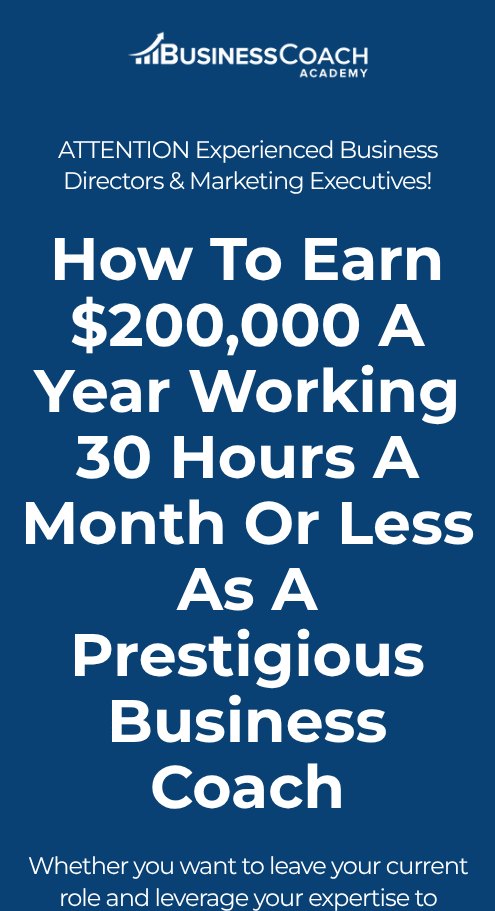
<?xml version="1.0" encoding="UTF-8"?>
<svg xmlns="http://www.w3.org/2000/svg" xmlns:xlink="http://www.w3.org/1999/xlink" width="495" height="911">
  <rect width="100%" height="100%" fill="#094174" />
  <image x="128" y="31" width="240" height="47" xlink:href="image1.png" />
  <text x="58" y="158" style="font-family: Montserrat; font-size: 24px; letter-spacing: -1px; fill: #ffffff">ATTENTION Experienced Business</text>
  <text x="63" y="189" style="font-family: Montserrat; font-size: 24px; letter-spacing: -1px; fill: #ffffff">Directors &amp; Marketing Executives!</text>
  <text x="50" y="280" style="font-family: Montserrat; font-size: 60px; font-weight: bold; fill: #ffffff">How To Earn</text>
  <text x="70" y="346" style="font-family: Montserrat; font-size: 60px; font-weight: bold; fill: #ffffff">$200,000 A</text>
  <text x="34" y="412" style="font-family: Montserrat; font-size: 60px; font-weight: bold; fill: #ffffff">Year Working</text>
  <text x="76" y="478" style="font-family: Montserrat; font-size: 60px; font-weight: bold; fill: #ffffff">30 Hours A</text>
  <text x="21" y="544" style="font-family: Montserrat; font-size: 60px; font-weight: bold; fill: #ffffff">Month Or Less</text>
  <text x="177" y="610" style="font-family: Montserrat; font-size: 60px; font-weight: bold; fill: #ffffff">As A</text>
  <text x="70" y="676" style="font-family: Montserrat; font-size: 60px; font-weight: bold; fill: #ffffff">Prestigious</text>
  <text x="107" y="742" style="font-family: Montserrat; font-size: 60px; font-weight: bold; fill: #ffffff">Business</text>
  <text x="150" y="808" style="font-family: Montserrat; font-size: 60px; font-weight: bold; fill: #ffffff">Coach</text>
  <text x="28" y="874" style="font-family: Montserrat; font-size: 24px; letter-spacing: -1px; fill: #ffffff">Whether you want to leave your current</text>
  <text x="59" y="906" style="font-family: Montserrat; font-size: 24px; letter-spacing: -1px; fill: #ffffff">role and leverage your expertise to</text>
</svg>
